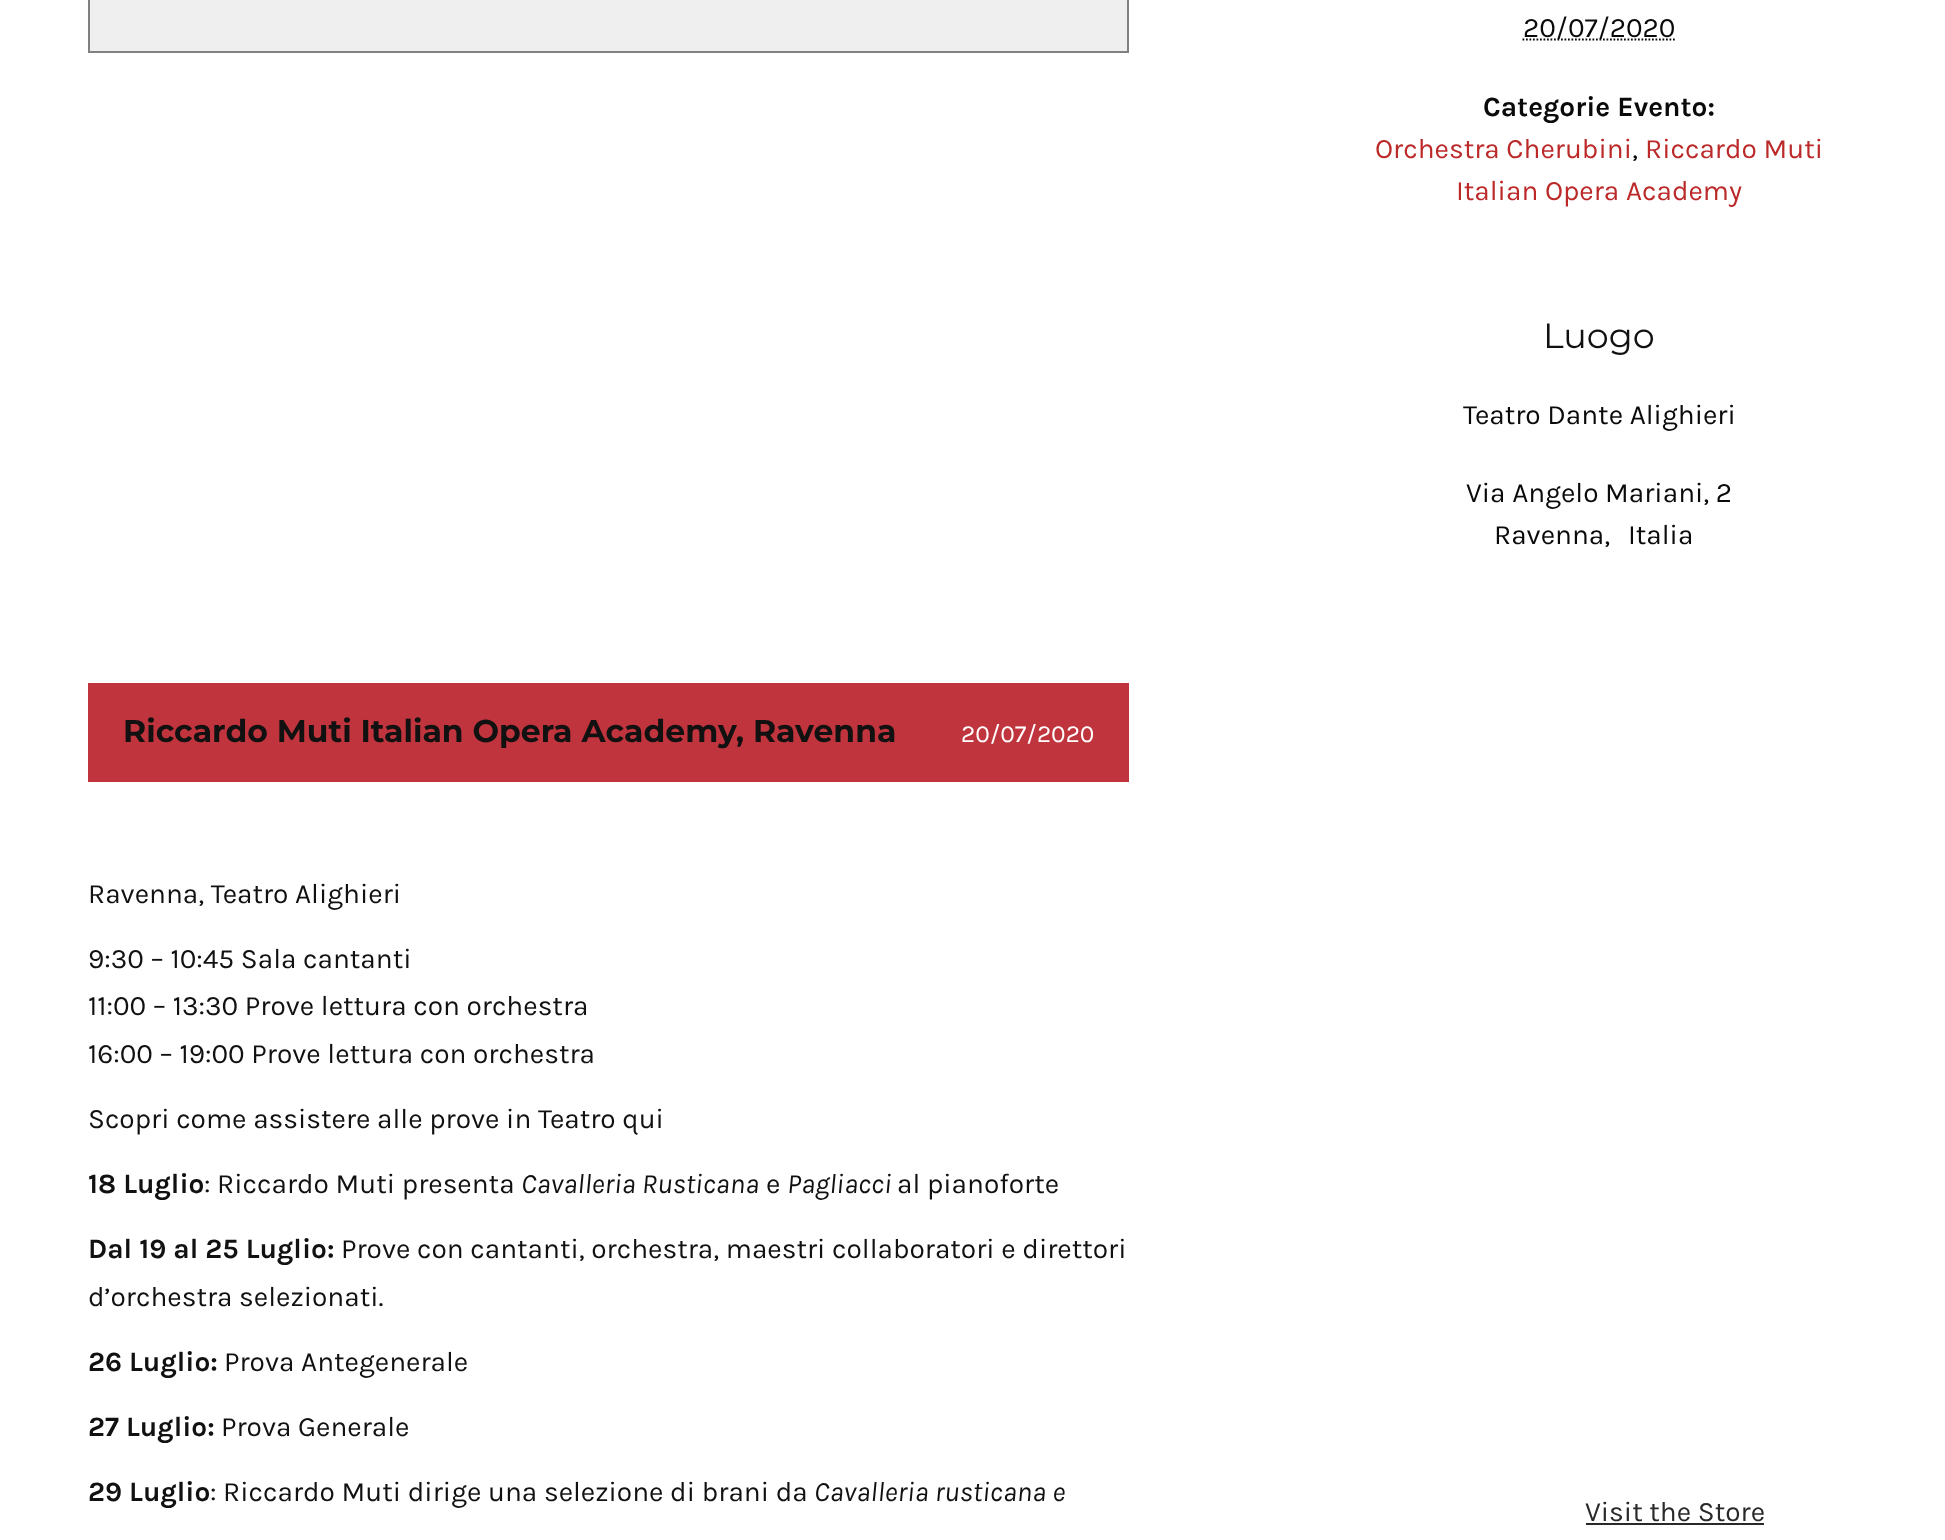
<?xml version="1.0" encoding="UTF-8"?>
<svg xmlns="http://www.w3.org/2000/svg" xmlns:xlink="http://www.w3.org/1999/xlink" width="1945" height="1540">
  <rect width="100%" height="100%" fill="#ffffff" />
  <path d="M 1522.5 39.5 h 152.5" fill="none" stroke="#0a0a0a" stroke-width="1.8" stroke-dasharray="1.75 1.75" />
  <rect x="89" y="-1" width="1039" height="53" fill="#efefef" stroke="#808080" stroke-width="2" />
  <rect x="88" y="683" width="1041" height="99" fill="#c0353d" />
  <rect x="1586" y="1523" width="178" height="2" fill="#292929" />
  <text x="1523" y="37" style="font-family: Karla; font-size: 28px; fill: #0a0a0a">20/07/2020</text>
  <text x="1483" y="116" style="font-family: Karla; font-size: 28px; font-weight: bold; fill: #0a0a0a">Categorie Evento:</text>
  <text x="1375" y="158" style="font-family: Karla; font-size: 28px; fill: #bc2929">Orchestra Cherubini</text>
  <text x="1632" y="158" style="font-family: Karla; font-size: 28px; fill: #0a0a0a">,</text>
  <text x="1645" y="158" style="font-family: Karla; font-size: 28px; fill: #bc2929">Riccardo Muti</text>
  <text x="1456" y="200" style="font-family: Karla; font-size: 28px; fill: #bc2929">Italian Opera Academy</text>
  <text x="1543" y="348" style="font-family: Montserrat; font-size: 35px; fill: #111111">Luogo</text>
  <text x="1463" y="424" style="font-family: Karla; font-size: 28px; fill: #0a0a0a">Teatro Dante Alighieri</text>
  <text x="1466" y="502" style="font-family: Karla; font-size: 28px; fill: #0a0a0a">Via Angelo Mariani, 2</text>
  <text x="1494" y="544" style="font-family: Karla; font-size: 28px; fill: #0a0a0a">Ravenna,</text>
  <text x="1628" y="544" style="font-family: Karla; font-size: 28px; fill: #0a0a0a">Italia</text>
  <text x="123" y="742" style="font-family: Montserrat; font-size: 31.5px; font-weight: bold; fill: #111111">Riccardo Muti Italian Opera Academy, Ravenna</text>
  <text x="961" y="742" style="font-family: Karla; font-size: 24.5px; fill: #ffffff">20/07/2020</text>
  <text x="88" y="903" style="font-family: Karla; font-size: 28px; fill: #111111">Ravenna, Teatro Alighieri</text>
  <text x="88" y="968" style="font-family: Karla; font-size: 28px; fill: #111111">9:30 – 10:45 Sala cantanti</text>
  <text x="88" y="1015" style="font-family: Karla; font-size: 28px; fill: #111111">11:00 – 13:30 Prove lettura con orchestra</text>
  <text x="88" y="1063" style="font-family: Karla; font-size: 28px; fill: #111111">16:00 – 19:00 Prove lettura con orchestra</text>
  <text x="88" y="1128" style="font-family: Karla; font-size: 28px; fill: #111111">Scopri come assistere alle prove in Teatro qui</text>
  <text x="88" y="1193" style="font-family: Karla; font-size: 28px; font-weight: bold; fill: #111111">18 Luglio</text>
  <text x="204" y="1193" style="font-family: Karla; font-size: 28px; fill: #111111">: Riccardo Muti presenta</text>
  <text x="521" y="1193" style="font-family: Karla; font-size: 28px; font-style: italic; fill: #111111">Cavalleria Rusticana</text>
  <text x="766" y="1193" style="font-family: Karla; font-size: 28px; fill: #111111">e</text>
  <text x="787" y="1193" style="font-family: Karla; font-size: 28px; font-style: italic; fill: #111111">Pagliacci</text>
  <text x="897" y="1193" style="font-family: Karla; font-size: 28px; fill: #111111">al pianoforte</text>
  <text x="88" y="1258" style="font-family: Karla; font-size: 28px; font-weight: bold; fill: #111111">Dal 19 al 25 Luglio:</text>
  <text x="341" y="1258" style="font-family: Karla; font-size: 28px; fill: #111111">Prove con cantanti, orchestra, maestri collaboratori e direttori</text>
  <text x="88" y="1306" style="font-family: Karla; font-size: 28px; fill: #111111">d’orchestra selezionati.</text>
  <text x="88" y="1371" style="font-family: Karla; font-size: 28px; font-weight: bold; fill: #111111">26 Luglio:</text>
  <text x="224" y="1371" style="font-family: Karla; font-size: 28px; fill: #111111">Prova Antegenerale</text>
  <text x="88" y="1436" style="font-family: Karla; font-size: 28px; font-weight: bold; fill: #111111">27 Luglio:</text>
  <text x="221" y="1436" style="font-family: Karla; font-size: 28px; fill: #111111">Prova Generale</text>
  <text x="88" y="1501" style="font-family: Karla; font-size: 28px; font-weight: bold; fill: #111111">29 Luglio</text>
  <text x="210" y="1501" style="font-family: Karla; font-size: 28px; fill: #111111">: Riccardo Muti dirige una selezione di brani da</text>
  <text x="814" y="1501" style="font-family: Karla; font-size: 28px; font-style: italic; fill: #111111">Cavalleria rusticana e</text>
  <text x="1585" y="1521" style="font-family: Karla; font-size: 28px; fill: #292929">Visit the Store</text>
</svg>
